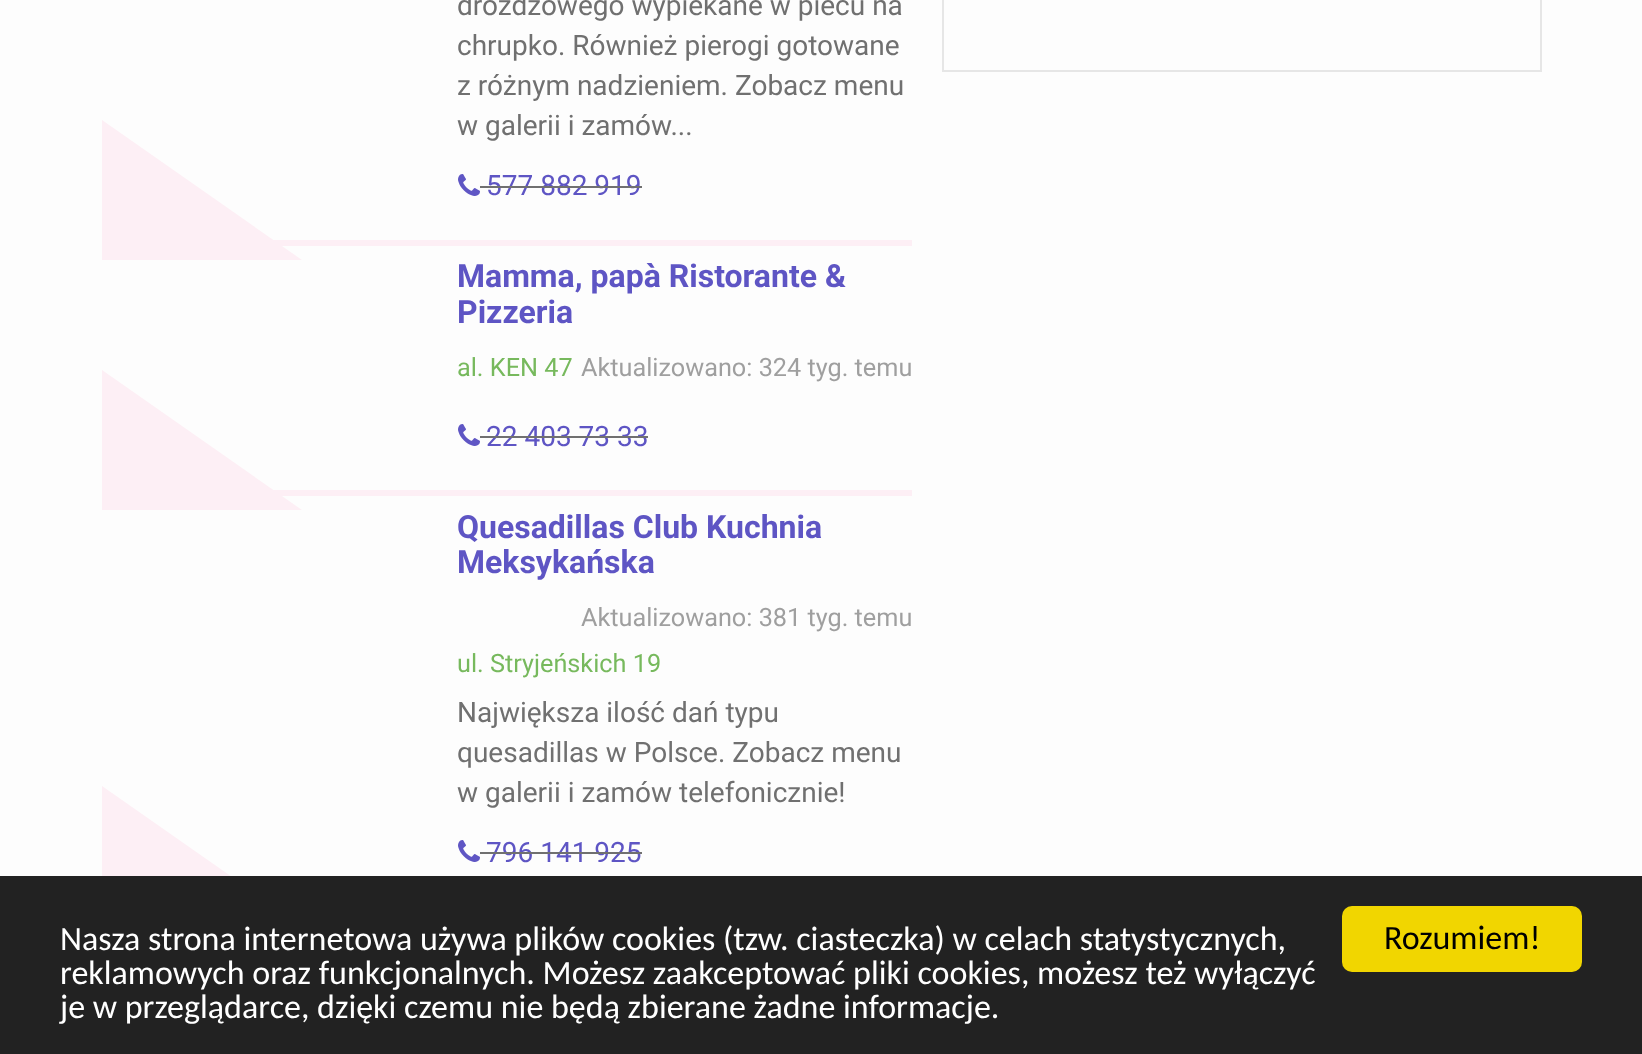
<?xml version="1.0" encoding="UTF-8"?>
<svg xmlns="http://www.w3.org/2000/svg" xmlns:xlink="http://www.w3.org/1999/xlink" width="1642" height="1054">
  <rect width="100%" height="100%" fill="#fdfdfd" />
  <image x="458" y="174" width="22" height="22" xlink:href="image1.png" />
  <rect x="273" y="240" width="639" height="6" fill="#fdeff5" />
  <path d="M 302 260 h -200 v -140 z" fill="#fdeff5" />
  <image x="458" y="424" width="22" height="22" xlink:href="image1.png" />
  <path d="M 302 926 h -200 v -140 z" fill="#fdeff5" />
  <rect x="273" y="490" width="639" height="6" fill="#fdeff5" />
  <path d="M 302 510 h -200 v -140 z" fill="#fdeff5" />
  <image x="458" y="840" width="22" height="22" xlink:href="image1.png" />
  <rect x="943" y="-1" width="598" height="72" fill="none" stroke="#e6e6e6" stroke-width="2" />
  <rect y="876" width="1642" height="178" fill="#222222" />
  <rect x="1342" y="906" width="240" height="66" rx="10" fill="#f1d600" />
  <text x="457" y="15" style="font-family: Roboto; font-size: 28px; fill: #707070">drożdżowego wypiekane w piecu na</text>
  <text x="457" y="55" style="font-family: Roboto; font-size: 28px; fill: #707070">chrupko. Również pierogi gotowane</text>
  <text x="457" y="95" style="font-family: Roboto; font-size: 28px; fill: #707070">z różnym nadzieniem. Zobacz menu</text>
  <text x="457" y="135" style="font-family: Roboto; font-size: 28px; fill: #707070">w galerii i zamów...</text>
  <text x="486" y="195" style="font-family: Roboto; font-size: 28px; fill: #5e55c4">577 882 919</text>
  <rect x="480" y="186" width="162" height="2" fill="#707070" />
  <text x="457" y="287" style="font-family: Roboto; font-size: 32px; font-weight: bold; fill: #5e55c4">Mamma, papà Ristorante &amp;</text>
  <text x="457" y="323" style="font-family: Roboto; font-size: 32px; font-weight: bold; fill: #5e55c4">Pizzeria</text>
  <text x="457" y="376" style="font-family: Roboto; font-size: 25.25px; fill: #77b95d">al. KEN 47</text>
  <text x="581" y="376" style="font-family: Roboto; font-size: 25.25px; fill: #9f9f9f">Aktualizowano: 324 tyg. temu</text>
  <text x="486" y="446" style="font-family: Roboto; font-size: 28px; fill: #5e55c4">22 403 73 33</text>
  <rect x="480" y="436" width="168" height="2" fill="#707070" />
  <text x="457" y="538" style="font-family: Roboto; font-size: 32px; font-weight: bold; fill: #5e55c4">Quesadillas Club Kuchnia</text>
  <text x="457" y="573" style="font-family: Roboto; font-size: 32px; font-weight: bold; fill: #5e55c4">Meksykańska</text>
  <text x="581" y="626" style="font-family: Roboto; font-size: 25.25px; fill: #9f9f9f">Aktualizowano: 381 tyg. temu</text>
  <text x="457" y="672" style="font-family: Roboto; font-size: 25.25px; fill: #77b95d">ul. Stryjeńskich 19</text>
  <text x="457" y="722" style="font-family: Roboto; font-size: 28px; fill: #707070">Największa ilość dań typu</text>
  <text x="457" y="762" style="font-family: Roboto; font-size: 28px; fill: #707070">quesadillas w Polsce. Zobacz menu</text>
  <text x="457" y="802" style="font-family: Roboto; font-size: 28px; fill: #707070">w galerii i zamów telefonicznie!</text>
  <text x="486" y="862" style="font-family: Roboto; font-size: 28px; fill: #5e55c4">796 141 925</text>
  <rect x="480" y="852" width="162" height="2" fill="#707070" />
  <text x="60" y="950" style="font-family: Carlito; font-size: 34px; fill: #ffffff">Nasza strona internetowa używa plików cookies (tzw. ciasteczka) w celach statystycznych,</text>
  <text x="60" y="984" style="font-family: Carlito; font-size: 34px; fill: #ffffff">reklamowych oraz funkcjonalnych. Możesz zaakceptować pliki cookies, możesz też wyłączyć</text>
  <text x="60" y="1018" style="font-family: Carlito; font-size: 34px; fill: #ffffff">je w przeglądarce, dzięki czemu nie będą zbierane żadne informacje.</text>
  <text x="1384" y="949" style="font-family: Carlito; font-size: 34px; fill: #000000">Rozumiem!</text>
</svg>
